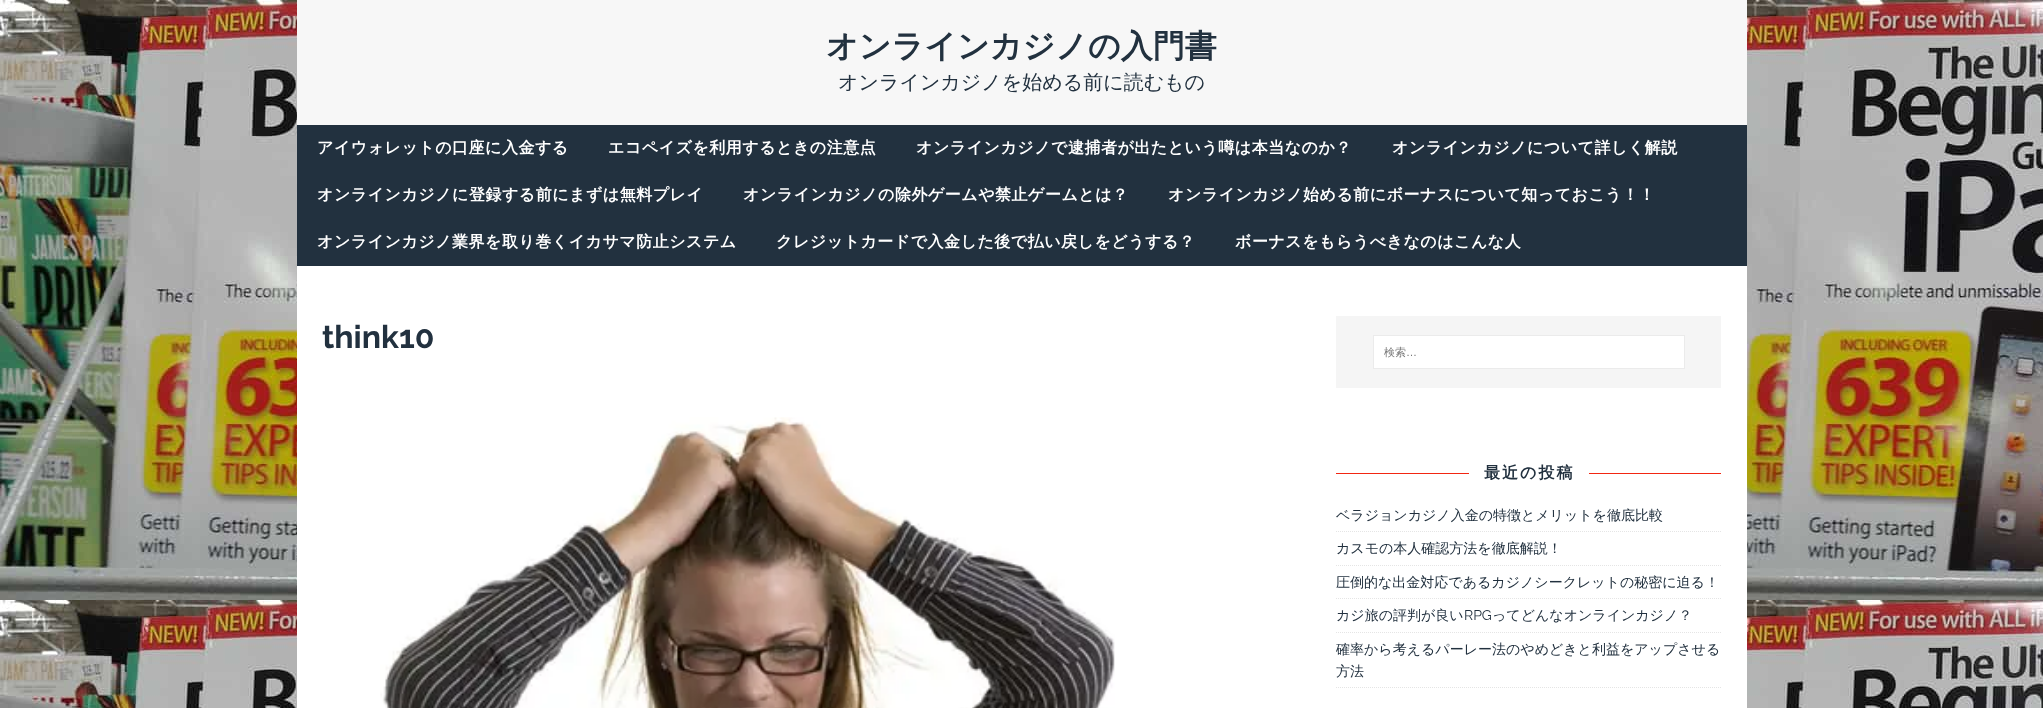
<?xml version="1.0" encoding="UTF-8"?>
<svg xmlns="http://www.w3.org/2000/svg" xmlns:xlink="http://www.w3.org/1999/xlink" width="2043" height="708">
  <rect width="100%" height="100%" fill="#ffffff" />
  <image x="0" y="0" width="2043" height="708" xlink:href="image1.png" />
  <rect x="297" width="1450" height="125" fill="#f7f7f7" />
  <rect x="297" y="125" width="1450" height="141" fill="#22313f" />
  <rect x="297" y="266" width="1450" height="442" fill="#ffffff" />
  <image x="380" y="417" width="735" height="291" xlink:href="image2.png" />
  <rect x="1336" y="316" width="385" height="72" fill="#f5f5f5" />
  <rect x="1373.5" y="335.5" width="311" height="33" fill="#ffffff" stroke="#ebebeb" />
  <rect x="1336" y="473" width="133" height="1" fill="#f22612" />
  <rect x="1589" y="473" width="132" height="1" fill="#f22612" />
  <path d="M 1336 531.5 h 385" fill="none" stroke="#e5e5e5" stroke-dasharray="1 1" />
  <path d="M 1336 565.5 h 385" fill="none" stroke="#e5e5e5" stroke-dasharray="1 1" />
  <path d="M 1336 598.5 h 385" fill="none" stroke="#e5e5e5" stroke-dasharray="1 1" />
  <path d="M 1336 632.5 h 385" fill="none" stroke="#e5e5e5" stroke-dasharray="1 1" />
  <path d="M 1336 687.5 h 385" fill="none" stroke="#e5e5e5" stroke-dasharray="1 1" />
  <text x="826" y="57" style="font-family: WenQuanYi Zen Hei; font-size: 32px; font-weight: bold; fill: #22313f">オンラインカジノの入門書</text>
  <text x="838" y="89" style="font-family: WenQuanYi Zen Hei; font-size: 20px; font-weight: 500; fill: #22313f">オンラインカジノを始める前に読むもの</text>
  <text x="317" y="153" style="font-family: WenQuanYi Zen Hei; font-size: 16px; font-weight: bold; letter-spacing: 0.5px; fill: #ffffff">アイウォレットの口座に入金する</text>
  <text x="608" y="153" style="font-family: WenQuanYi Zen Hei; font-size: 16px; font-weight: bold; letter-spacing: 0.5px; fill: #ffffff">エコペイズを利用するときの注意点</text>
  <text x="916" y="153" style="font-family: WenQuanYi Zen Hei; font-size: 16px; font-weight: bold; letter-spacing: 0.5px; fill: #ffffff">オンラインカジノで逮捕者が出たという噂は本当なのか？</text>
  <text x="1392" y="153" style="font-family: WenQuanYi Zen Hei; font-size: 16px; font-weight: bold; letter-spacing: 0.5px; fill: #ffffff">オンラインカジノについて詳しく解説</text>
  <text x="317" y="200" style="font-family: WenQuanYi Zen Hei; font-size: 16px; font-weight: bold; letter-spacing: 0.5px; fill: #ffffff">オンラインカジノに登録する前にまずは無料プレイ</text>
  <text x="743" y="200" style="font-family: WenQuanYi Zen Hei; font-size: 16px; font-weight: bold; letter-spacing: 0.5px; fill: #ffffff">オンラインカジノの除外ゲームや禁止ゲームとは？</text>
  <text x="1168" y="200" style="font-family: WenQuanYi Zen Hei; font-size: 16px; font-weight: bold; letter-spacing: 0.5px; fill: #ffffff">オンラインカジノ始める前にボーナスについて知っておこう！！</text>
  <text x="317" y="247" style="font-family: WenQuanYi Zen Hei; font-size: 16px; font-weight: bold; letter-spacing: 0.5px; fill: #ffffff">オンラインカジノ業界を取り巻くイカサマ防止システム</text>
  <text x="776" y="247" style="font-family: WenQuanYi Zen Hei; font-size: 16px; font-weight: bold; letter-spacing: 0.5px; fill: #ffffff">クレジットカードで入金した後で払い戻しをどうする？</text>
  <text x="1235" y="247" style="font-family: WenQuanYi Zen Hei; font-size: 16px; font-weight: bold; letter-spacing: 0.5px; fill: #ffffff">ボーナスをもらうべきなのはこんな人</text>
  <text x="322" y="348" style="font-family: Raleway; font-size: 32px; font-weight: bold; fill: #22313f">think10</text>
  <text x="1384" y="356" style="font-family: WenQuanYi Zen Hei; font-size: 11px; font-weight: 500; fill: #757575">検索</text>
  <text x="1406" y="356" style="font-family: Liberation Sans; font-size: 11px; fill: #757575">…</text>
  <text x="1484" y="478" style="font-family: WenQuanYi Zen Hei; font-size: 16px; font-weight: bold; letter-spacing: 2px; fill: #22313f">最近の投稿</text>
  <text x="1336" y="520" style="font-family: WenQuanYi Zen Hei; font-size: 14px; font-weight: 500; fill: #22313f">ベラジョンカジノ入金の特徴とメリットを徹底比較</text>
  <text x="1336" y="553" style="font-family: WenQuanYi Zen Hei; font-size: 14px; font-weight: 500; fill: #22313f">カスモの本人確認方法を徹底解説！</text>
  <text x="1336" y="587" style="font-family: WenQuanYi Zen Hei; font-size: 14px; font-weight: 500; fill: #22313f">圧倒的な出金対応であるカジノシークレットの秘密に迫る！</text>
  <text x="1336" y="620" style="font-family: WenQuanYi Zen Hei; font-size: 14px; font-weight: 500; fill: #22313f">カジ旅の評判が良い</text>
  <text x="1464" y="620" style="font-family: Raleway; font-size: 14px; fill: #22313f">RPG</text>
  <text x="1492" y="620" style="font-family: WenQuanYi Zen Hei; font-size: 14px; font-weight: 500; fill: #22313f">ってどんなオンラインカジノ？</text>
  <text x="1336" y="654" style="font-family: WenQuanYi Zen Hei; font-size: 14px; font-weight: 500; fill: #22313f">確率から考えるパーレー法のやめどきと利益をアップさせる</text>
  <text x="1336" y="676" style="font-family: WenQuanYi Zen Hei; font-size: 14px; font-weight: 500; fill: #22313f">方法</text>
</svg>
